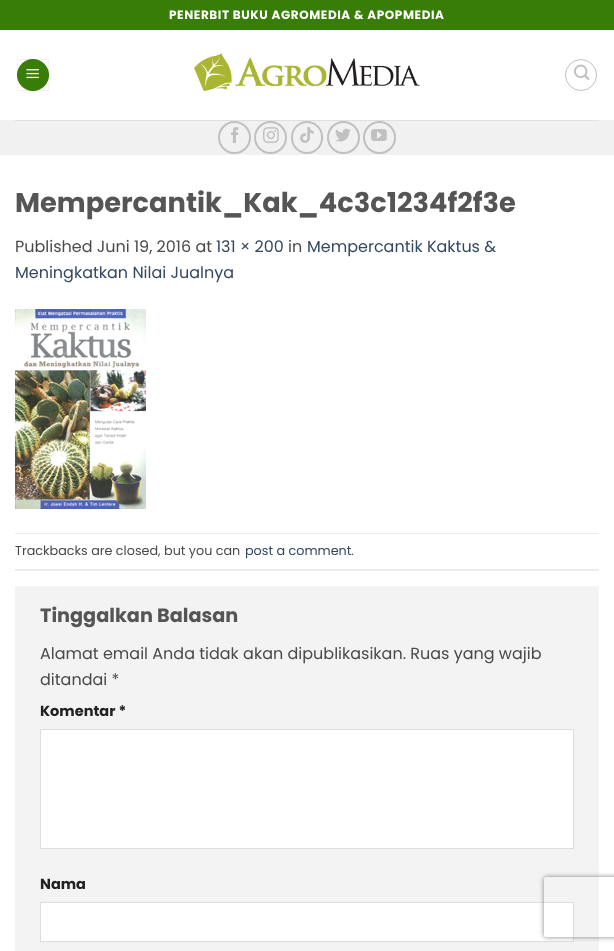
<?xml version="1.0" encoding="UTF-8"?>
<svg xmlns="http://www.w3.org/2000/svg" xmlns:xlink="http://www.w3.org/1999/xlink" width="614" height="951">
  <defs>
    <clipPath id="clip1"><path d="M 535 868 h 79 v 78 h -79 z m 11 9 h 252 c 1 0 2 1 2 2 v 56 c 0 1 -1 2 -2 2 h -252 c -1 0 -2 -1 -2 -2 v -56 c 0 -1 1 -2 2 -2 z" clip-rule="evenodd" /></clipPath>
  </defs>
  <rect width="100%" height="100%" fill="#ffffff" />
  <rect width="614" height="30" fill="#387d07" />
  <circle cx="33" cy="75" r="16" fill="#387d07" />
  <rect x="17.5" y="59.5" width="31" height="31" fill="none" stroke="#000000" stroke-opacity="0.05" />
  <image x="26" y="69" width="13" height="10" xlink:href="image1.png" />
  <image x="194" y="53" width="226" height="38" xlink:href="image2.png" />
  <circle cx="581" cy="75" r="15.5" fill="none" stroke="#c0c0c0" />
  <image x="574" y="64" width="16" height="16" xlink:href="image3.png" />
  <rect y="120" width="614" height="35" fill="#f1f1f1" />
  <rect x="15" y="120" width="584" height="1" fill="#e0e0e0" />
  <circle cx="234.5" cy="137.5" r="15.5" fill="none" stroke="#c0c0c0" stroke-width="2" />
  <image x="231" y="127" width="8" height="16" xlink:href="image4.png" />
  <circle cx="270.5" cy="137.5" r="15.5" fill="none" stroke="#c0c0c0" stroke-width="2" />
  <image x="263" y="127" width="16" height="16" xlink:href="image5.png" />
  <rect x="292" y="122" width="30" height="31" rx="15" fill="none" stroke="#c0c0c0" stroke-width="2" />
  <image x="300" y="127" width="14" height="16" xlink:href="image6.png" />
  <circle cx="343.5" cy="137.5" r="15.5" fill="none" stroke="#c0c0c0" stroke-width="2" />
  <image x="335" y="128" width="16" height="14" xlink:href="image7.png" />
  <circle cx="379.5" cy="137.5" r="15.5" fill="none" stroke="#c0c0c0" stroke-width="2" />
  <image x="371" y="129" width="16" height="12" xlink:href="image8.png" />
  <image x="15" y="309" width="131" height="200" xlink:href="image9.png" />
  <rect x="15" y="533" width="584" height="1" fill="#ececec" />
  <rect x="15" y="569" width="584" height="2" fill="#ececec" />
  <rect x="15" y="586" width="584" height="365" fill="#f3f3f3" />
  <rect x="40.5" y="729.5" width="533" height="119" fill="#ffffff" stroke="#dddddd" />
  <rect x="40.5" y="902.5" width="533" height="39" fill="#ffffff" stroke="#dddddd" />
  <g clip-path="url(#clip1)">
    <rect x="544" y="877" width="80" height="60" rx="2" fill="#808080" filter="blur(2.5px)" />
  </g>
  <text x="169" y="19" style="font-family: Poppins; font-size: 12px; font-weight: bold; letter-spacing: 0.6px; fill: #ffffff">PENERBIT BUKU AGROMEDIA &amp; APOPMEDIA</text>
  <text x="15" y="212" style="font-family: Poppins; font-size: 27.25px; font-weight: bold; fill: #555555">Mempercantik_Kak_4c3c1234f2f3e</text>
  <text x="15" y="252" style="font-family: Poppins; font-size: 16px; fill: #4a4a4a">Published Juni 19, 2016 at</text>
  <text x="216" y="252" style="font-family: Poppins; font-size: 16px; fill: #334862">131 × 200</text>
  <text x="288" y="252" style="font-family: Poppins; font-size: 16px; fill: #4a4a4a">in</text>
  <text x="307" y="252" style="font-family: Poppins; font-size: 16px; fill: #334862">Mempercantik Kaktus &amp;</text>
  <text x="15" y="278" style="font-family: Poppins; font-size: 16px; fill: #334862">Meningkatkan Nilai Jualnya</text>
  <text x="15" y="555" style="font-family: Poppins; font-size: 12.75px; fill: #4a4a4a">Trackbacks are closed, but you can</text>
  <text x="245" y="555" style="font-family: Poppins; font-size: 12.75px; fill: #334862">post a comment</text>
  <text x="351" y="555" style="font-family: Poppins; font-size: 12.75px; fill: #4a4a4a">.</text>
  <text x="40" y="622" style="font-family: Poppins; font-size: 19.25px; font-weight: bold; fill: #555555">Tinggalkan Balasan</text>
  <text x="40" y="659" style="font-family: Poppins; font-size: 16px; fill: #4a4a4a">Alamat email Anda tidak akan dipublikasikan. Ruas yang wajib</text>
  <text x="40" y="685" style="font-family: Poppins; font-size: 16px; fill: #4a4a4a">ditandai *</text>
  <text x="40" y="716" style="font-family: Poppins; font-size: 14.5px; font-weight: bold; fill: #222222">Komentar *</text>
  <text x="40" y="889" style="font-family: Poppins; font-size: 14.5px; font-weight: bold; fill: #222222">Nama</text>
</svg>
